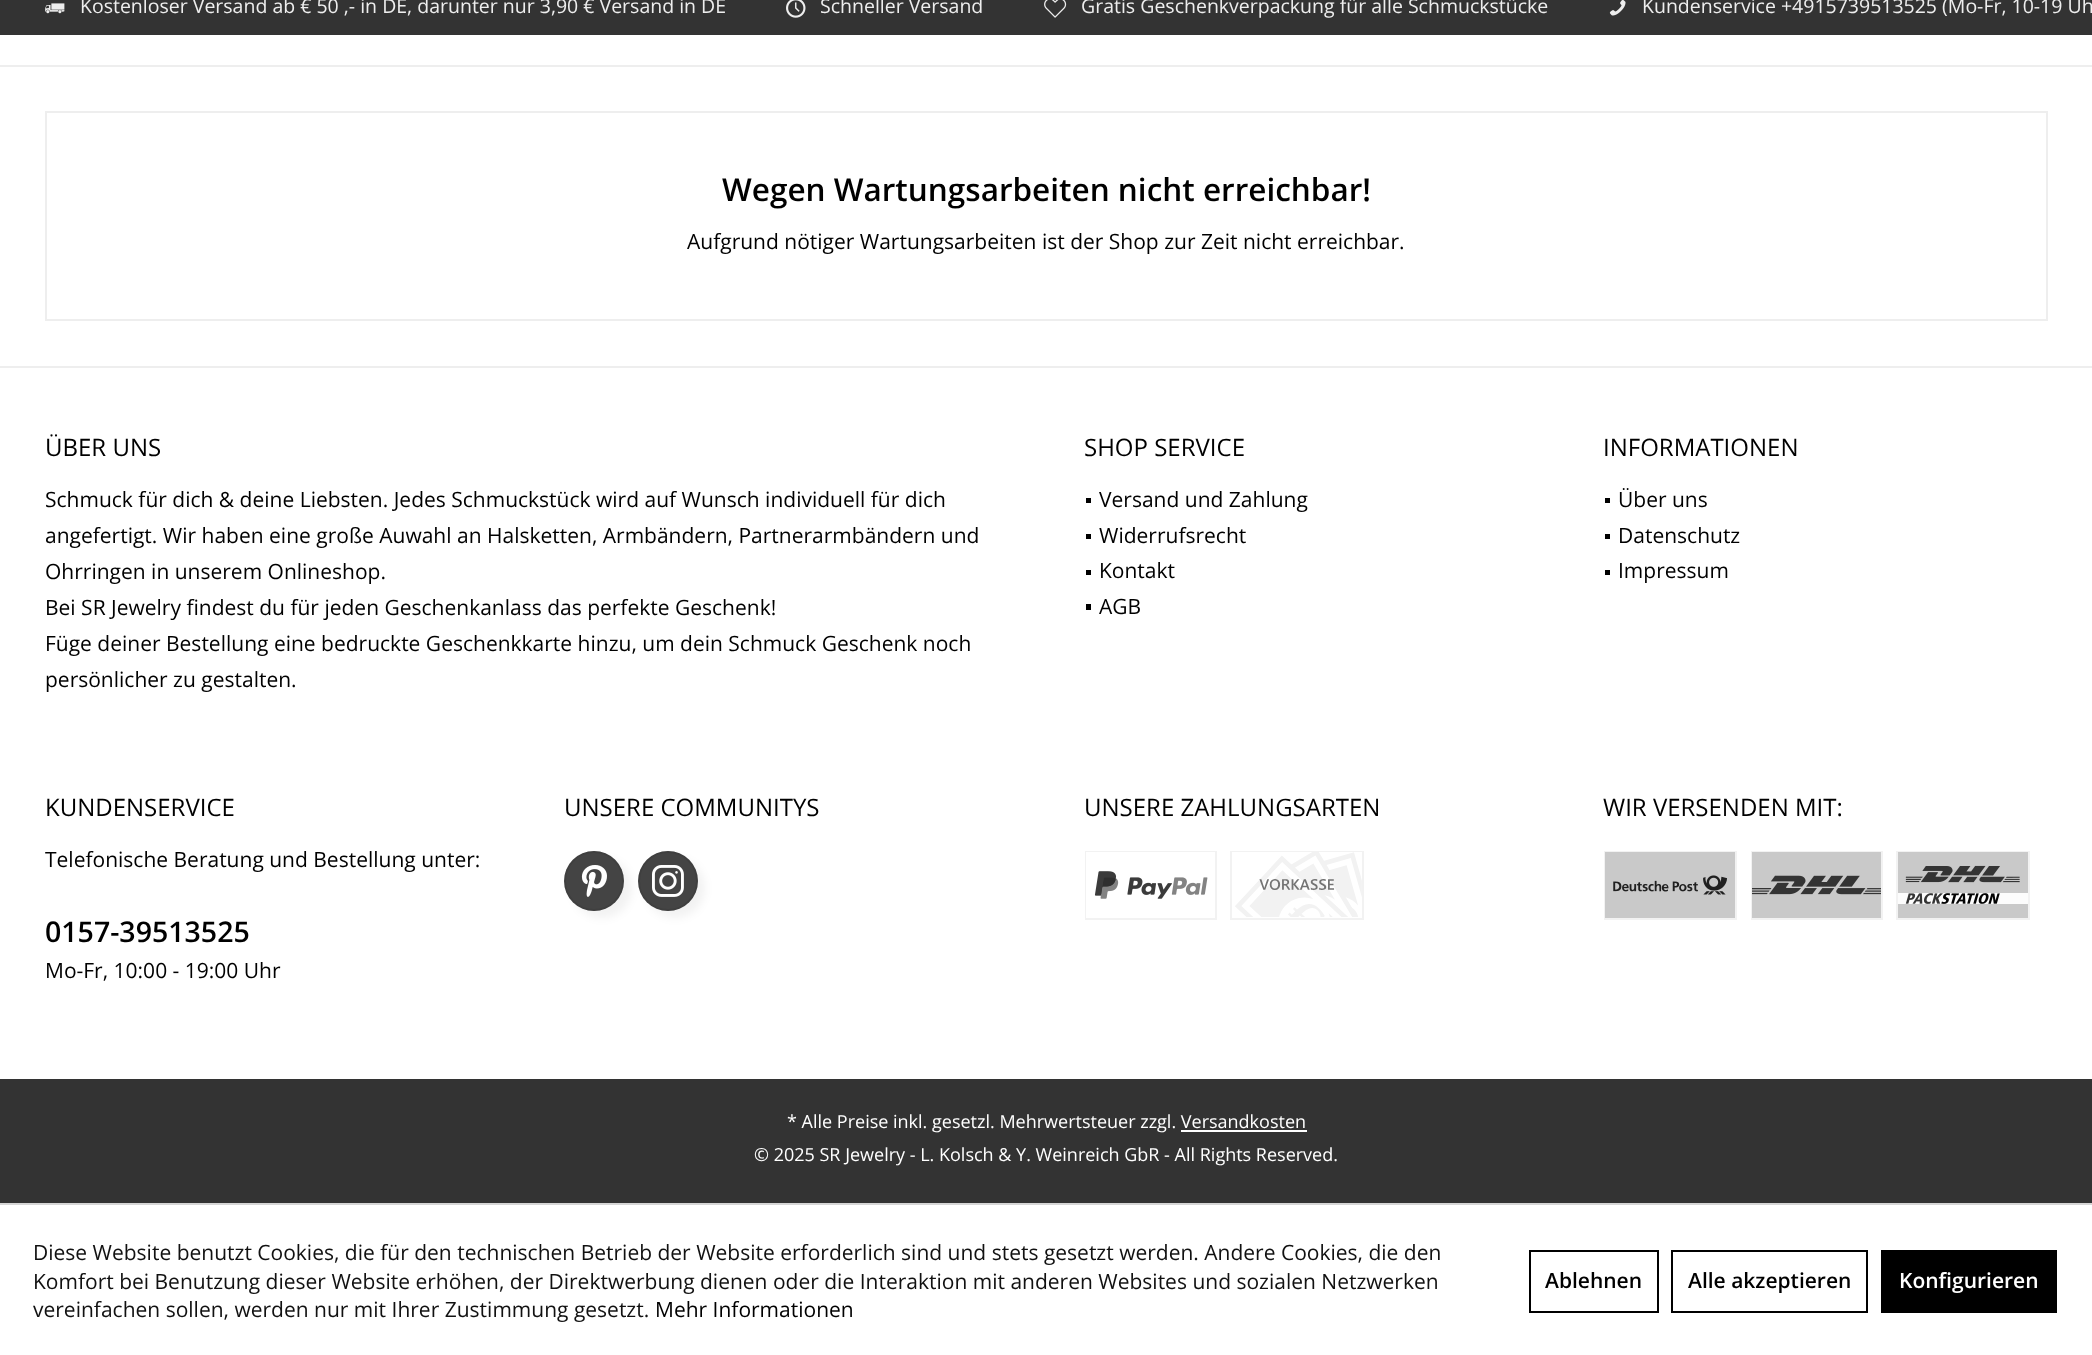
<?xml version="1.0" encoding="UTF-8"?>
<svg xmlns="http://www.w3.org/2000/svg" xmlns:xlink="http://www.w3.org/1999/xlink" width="2092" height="1355">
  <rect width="100%" height="100%" fill="#ffffff" />
  <rect y="65" width="2092" height="2" fill="#eeeeee" />
  <rect width="2092" height="35" fill="#333333" />
  <image x="45" y="3" width="20" height="11" xlink:href="image1.png" />
  <image x="786" y="0" width="20" height="18" xlink:href="image2.png" />
  <image x="1044" y="0" width="23" height="18" xlink:href="image3.png" />
  <image x="1609" y="0" width="17" height="16" xlink:href="image4.png" />
  <rect x="46" y="112" width="2001" height="208" fill="none" stroke="#eeeeee" stroke-width="2" />
  <rect y="366" width="2092" height="2" fill="#eeeeee" />
  <rect x="1086" y="498" width="5" height="5" fill="#000000" />
  <rect x="1086" y="534" width="5" height="5" fill="#000000" />
  <rect x="1086" y="570" width="5" height="5" fill="#000000" />
  <rect x="1086" y="604" width="5" height="6" fill="#000000" />
  <rect x="1605" y="498" width="5" height="5" fill="#000000" />
  <rect x="1605" y="534" width="5" height="5" fill="#000000" />
  <rect x="1605" y="570" width="5" height="5" fill="#000000" />
  <rect x="572" y="858" width="60" height="60" rx="30" fill="#000000" fill-opacity="0.05" filter="blur(4px)" />
  <circle cx="594" cy="881" r="30" fill="#444444" />
  <image x="581" y="865" width="26" height="32" xlink:href="image5.png" />
  <circle cx="594" cy="881" r="29" fill="none" stroke="#000000" stroke-opacity="0.07" stroke-width="2" />
  <rect x="645" y="858" width="60" height="60" rx="30" fill="#000000" fill-opacity="0.05" filter="blur(4px)" />
  <circle cx="668" cy="881" r="30" fill="#444444" />
  <image x="652" y="865" width="32" height="32" xlink:href="image6.png" />
  <circle cx="668" cy="881" r="29" fill="none" stroke="#000000" stroke-opacity="0.07" stroke-width="2" />
  <rect x="1086" y="852" width="130" height="67" fill="none" stroke="#f2f2f2" stroke-width="2" />
  <image x="1086" y="852" width="129" height="66" xlink:href="image7.png" />
  <rect x="1231" y="852" width="132" height="67" fill="none" stroke="#f2f2f2" stroke-width="2" />
  <image x="1232" y="852" width="130" height="65" xlink:href="image8.png" />
  <rect x="1605" y="852" width="131" height="67" fill="none" stroke="#f2f2f2" stroke-width="2" />
  <image x="1605" y="852" width="130" height="66" xlink:href="image9.png" />
  <rect x="1752" y="852" width="130" height="67" fill="none" stroke="#f2f2f2" stroke-width="2" />
  <image x="1752" y="852" width="129" height="66" xlink:href="image10.png" />
  <rect x="1897" y="852" width="132" height="67" fill="none" stroke="#f2f2f2" stroke-width="2" />
  <image x="1898" y="852" width="130" height="66" xlink:href="image11.png" />
  <rect y="1079" width="2092" height="124" fill="#333333" />
  <rect x="1181" y="1130" width="126" height="2" fill="#ffffff" />
  <rect y="1203" width="2092" height="2" fill="#d6d6d6" />
  <rect x="1530" y="1251" width="128" height="61" fill="none" stroke="#000000" stroke-width="2" />
  <rect x="1672" y="1251" width="195" height="61" fill="none" stroke="#000000" stroke-width="2" />
  <rect x="1881" y="1250" width="176" height="63" fill="#000000" />
  <text x="80" y="13" style="font-family: Open Sans; font-size: 19.5px; fill: #eeeeee">Kostenloser Versand ab € 50 ,- in DE, darunter nur 3,90 € Versand in DE</text>
  <text x="820" y="13" style="font-family: Open Sans; font-size: 19.5px; fill: #eeeeee">Schneller Versand</text>
  <text x="1081" y="13" style="font-family: Open Sans; font-size: 19.5px; fill: #eeeeee">Gratis Geschenkverpackung für alle Schmuckstücke</text>
  <text x="1642" y="13" style="font-family: Open Sans; font-size: 19.5px; fill: #eeeeee">Kundenservice +4915739513525 (Mo-Fr, 10-19 Uh</text>
  <text x="722" y="201" style="font-family: Open Sans; font-size: 31.5px; font-weight: 600; fill: #000000">Wegen Wartungsarbeiten nicht erreichbar!</text>
  <text x="687" y="249" style="font-family: Open Sans; font-size: 21px; fill: #000000">Aufgrund nötiger Wartungsarbeiten ist der Shop zur Zeit nicht erreichbar.</text>
  <text x="45" y="456" style="font-family: Open Sans; font-size: 24px; fill: #000000">ÜBER UNS</text>
  <text x="45" y="507" style="font-family: Open Sans; font-size: 21px; fill: #000000">Schmuck für dich &amp; deine Liebsten. Jedes Schmuckstück wird auf Wunsch individuell für dich</text>
  <text x="45" y="543" style="font-family: Open Sans; font-size: 21px; fill: #000000">angefertigt. Wir haben eine große Auwahl an Halsketten, Armbändern, Partnerarmbändern und</text>
  <text x="45" y="579" style="font-family: Open Sans; font-size: 21px; fill: #000000">Ohrringen in unserem Onlineshop.</text>
  <text x="45" y="615" style="font-family: Open Sans; font-size: 21px; fill: #000000">Bei SR Jewelry findest du für jeden Geschenkanlass das perfekte Geschenk!</text>
  <text x="45" y="651" style="font-family: Open Sans; font-size: 21px; fill: #000000">Füge deiner Bestellung eine bedruckte Geschenkkarte hinzu, um dein Schmuck Geschenk noch</text>
  <text x="45" y="687" style="font-family: Open Sans; font-size: 21px; fill: #000000">persönlicher zu gestalten.</text>
  <text x="1084" y="456" style="font-family: Open Sans; font-size: 24px; fill: #000000">SHOP SERVICE</text>
  <text x="1099" y="507" style="font-family: Open Sans; font-size: 21px; fill: #000000">Versand und Zahlung</text>
  <text x="1099" y="543" style="font-family: Open Sans; font-size: 21px; fill: #000000">Widerrufsrecht</text>
  <text x="1099" y="578" style="font-family: Open Sans; font-size: 21px; fill: #000000">Kontakt</text>
  <text x="1099" y="614" style="font-family: Open Sans; font-size: 21px; fill: #000000">AGB</text>
  <text x="1603" y="456" style="font-family: Open Sans; font-size: 24px; fill: #000000">INFORMATIONEN</text>
  <text x="1618" y="507" style="font-family: Open Sans; font-size: 21px; fill: #000000">Über uns</text>
  <text x="1618" y="543" style="font-family: Open Sans; font-size: 21px; fill: #000000">Datenschutz</text>
  <text x="1618" y="578" style="font-family: Open Sans; font-size: 21px; fill: #000000">Impressum</text>
  <text x="45" y="816" style="font-family: Open Sans; font-size: 24px; fill: #000000">KUNDENSERVICE</text>
  <text x="45" y="867" style="font-family: Open Sans; font-size: 21px; fill: #000000">Telefonische Beratung und Bestellung unter:</text>
  <text x="45" y="942" style="font-family: Open Sans; font-size: 28.5px; font-weight: 600; fill: #000000">0157-39513525</text>
  <text x="45" y="978" style="font-family: Open Sans; font-size: 21px; fill: #000000">Mo-Fr, 10:00 - 19:00 Uhr</text>
  <text x="564" y="816" style="font-family: Open Sans; font-size: 24px; fill: #000000">UNSERE COMMUNITYS</text>
  <text x="1084" y="816" style="font-family: Open Sans; font-size: 24px; fill: #000000">UNSERE ZAHLUNGSARTEN</text>
  <text x="1603" y="816" style="font-family: Open Sans; font-size: 24px; fill: #000000">WIR VERSENDEN MIT:</text>
  <text x="787" y="1128" style="font-family: Open Sans; font-size: 18px; fill: #ffffff">* Alle Preise inkl. gesetzl. Mehrwertsteuer zzgl. Versandkosten</text>
  <text x="754" y="1161" style="font-family: Open Sans; font-size: 18px; fill: #ffffff">© 2025 SR Jewelry - L. Kolsch &amp; Y. Weinreich GbR - All Rights Reserved.</text>
  <text x="33" y="1260" style="font-family: Open Sans; font-size: 21px; fill: #111111">Diese Website benutzt Cookies, die für den technischen Betrieb der Website erforderlich sind und stets gesetzt werden. Andere Cookies, die den</text>
  <text x="33" y="1289" style="font-family: Open Sans; font-size: 21px; fill: #111111">Komfort bei Benutzung dieser Website erhöhen, der Direktwerbung dienen oder die Interaktion mit anderen Websites und sozialen Netzwerken</text>
  <text x="33" y="1317" style="font-family: Open Sans; font-size: 21px; fill: #111111">vereinfachen sollen, werden nur mit Ihrer Zustimmung gesetzt.</text>
  <text x="655" y="1317" style="font-family: Open Sans; font-size: 21px; fill: #000000">Mehr Informationen</text>
  <text x="1545" y="1288" style="font-family: Open Sans; font-size: 21px; font-weight: 600; fill: #000000">Ablehnen</text>
  <text x="1688" y="1288" style="font-family: Open Sans; font-size: 21px; font-weight: 600; fill: #000000">Alle akzeptieren</text>
  <text x="1899" y="1288" style="font-family: Open Sans; font-size: 21px; font-weight: 600; fill: #ffffff">Konfigurieren</text>
</svg>
